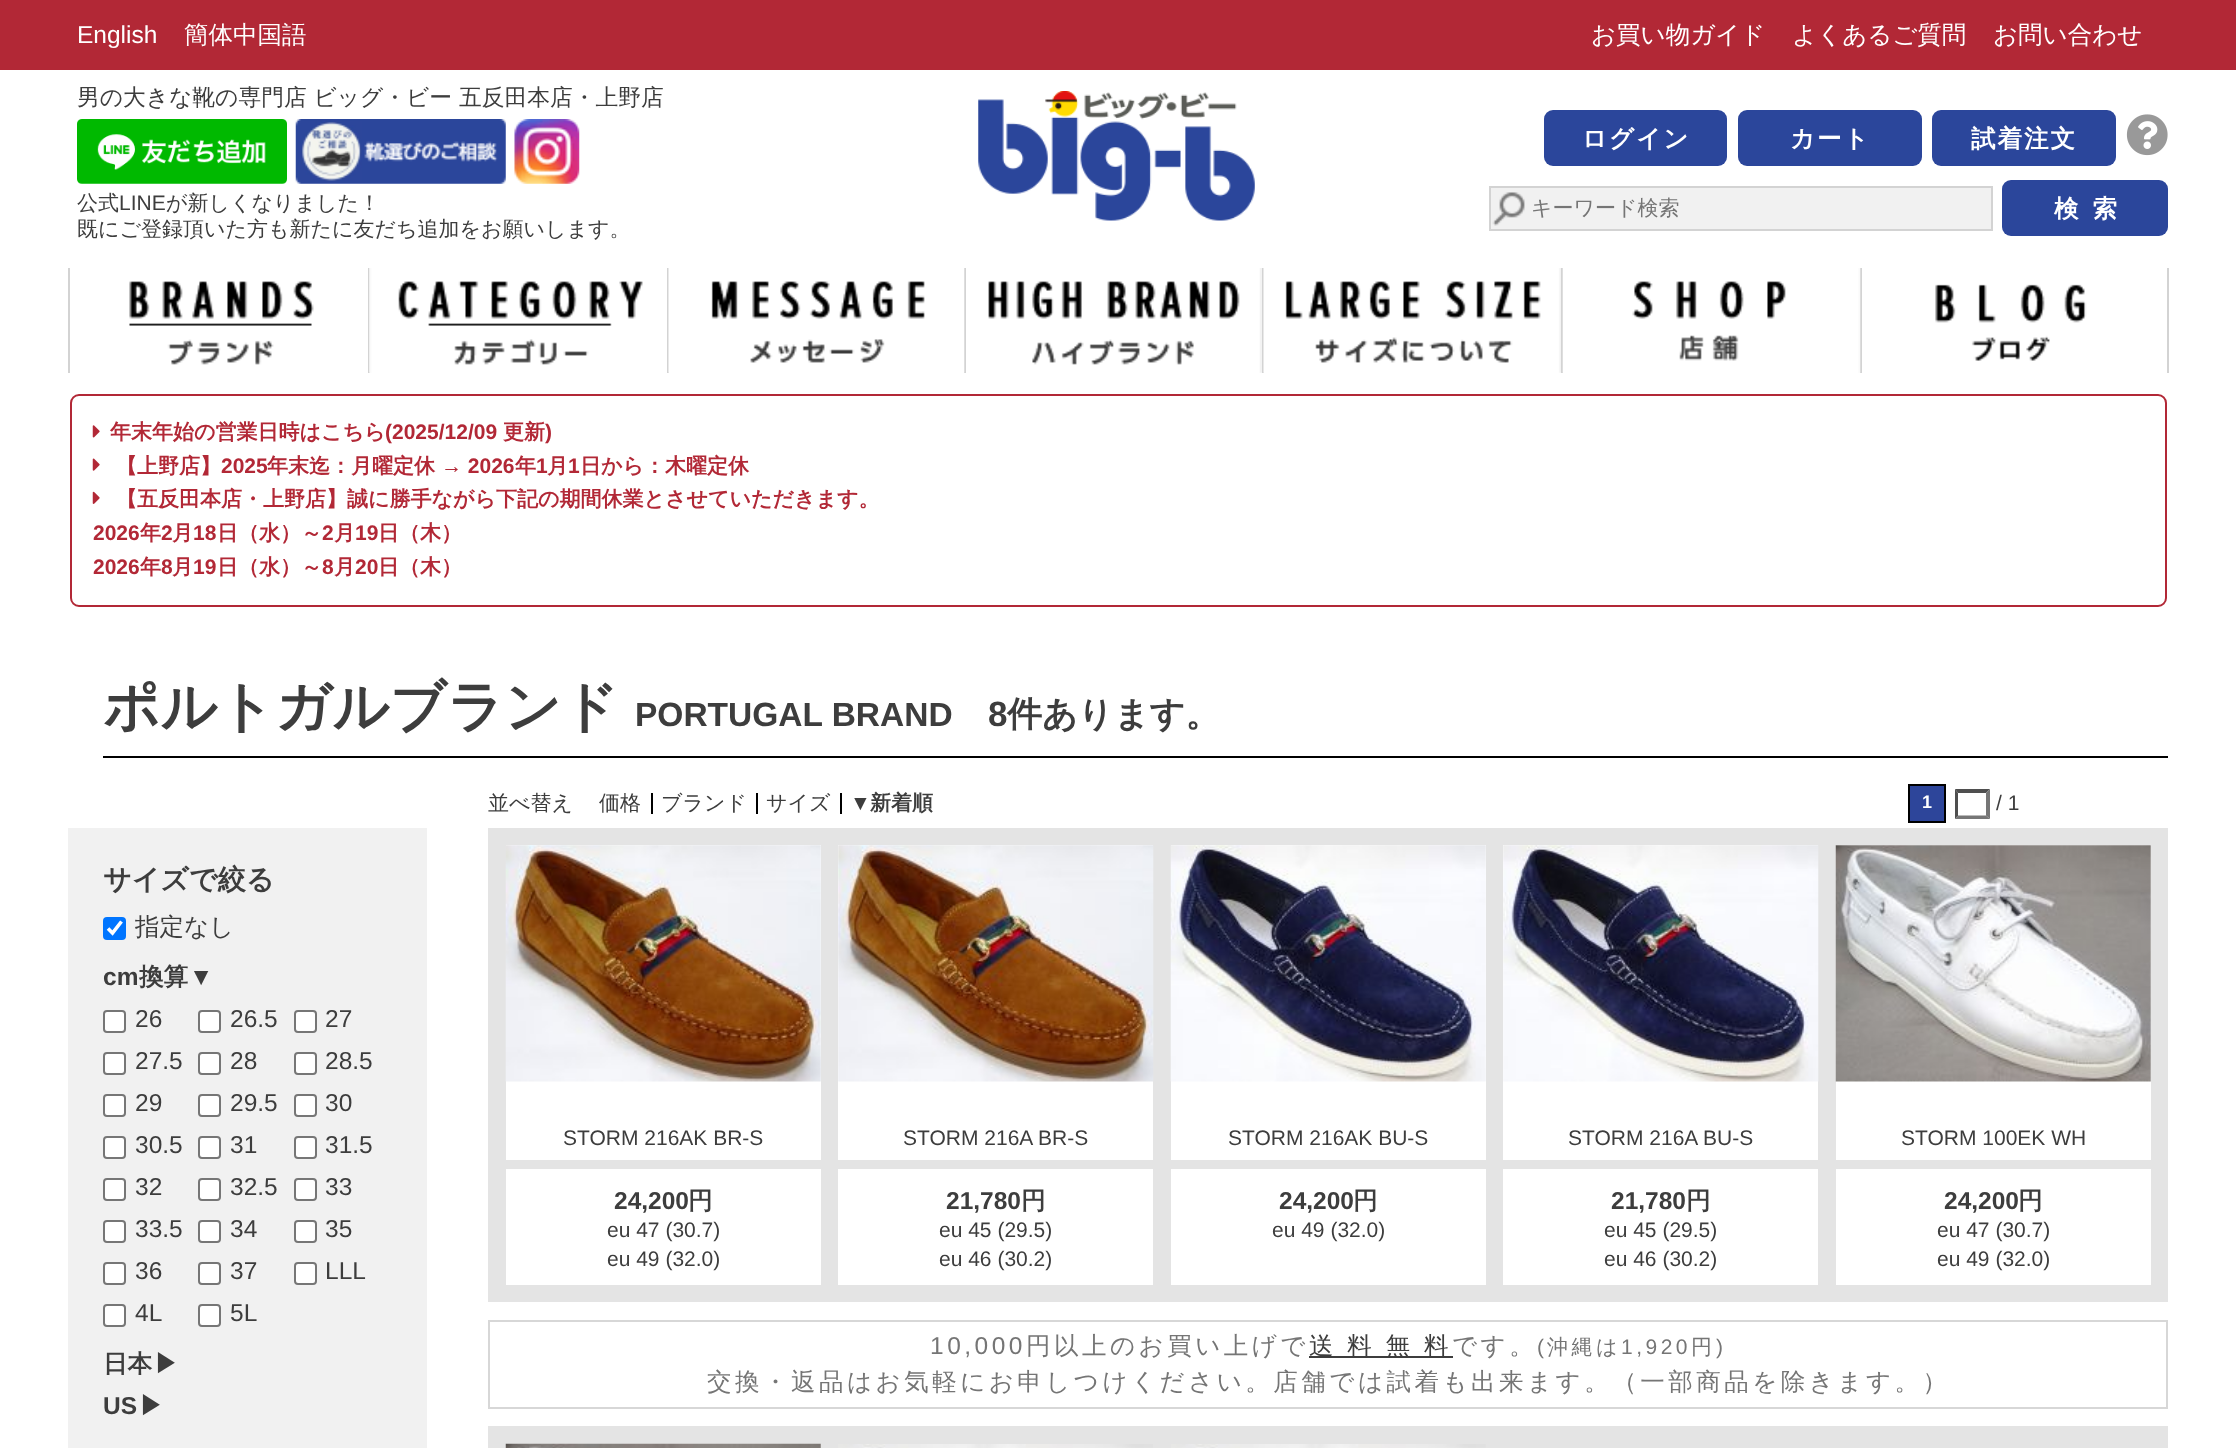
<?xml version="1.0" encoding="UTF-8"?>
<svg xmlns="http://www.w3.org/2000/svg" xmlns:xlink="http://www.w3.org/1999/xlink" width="2236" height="1448">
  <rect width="100%" height="100%" fill="#ffffff" />
  <rect width="2236" height="70" fill="#b22836" />
  <image x="77" y="119" width="210" height="65" xlink:href="image1.png" />
  <image x="295" y="119" width="211" height="65" xlink:href="image2.png" />
  <image x="514" y="119" width="66" height="65" xlink:href="image3.png" />
  <image x="978" y="91" width="277" height="130" xlink:href="image4.png" />
  <rect x="1544" y="110" width="183" height="56" rx="9" fill="#2b469b" />
  <rect x="1738" y="110" width="184" height="56" rx="9" fill="#2b469b" />
  <rect x="1932" y="110" width="184" height="56" rx="9" fill="#2b469b" />
  <image x="2126" y="114" width="42" height="42" xlink:href="image5.png" />
  <rect x="1491" y="188" width="500" height="41" fill="#f1f1f1" />
  <image x="1492" y="192" width="33" height="34" xlink:href="image6.png" />
  <rect x="1490" y="187" width="502" height="43" fill="none" stroke="#d3d3d3" stroke-width="2" />
  <rect x="2002" y="180" width="166" height="56" rx="9" fill="#2b469b" />
  <rect x="2167" y="268" width="2" height="105" fill="#d3d3d3" />
  <rect x="68" y="268" width="2" height="105" fill="#d3d3d3" />
  <image x="129" y="281" width="185" height="84" xlink:href="image7.png" />
  <rect x="368" y="268" width="2" height="105" fill="#d3d3d3" />
  <image x="369" y="268" width="274" height="105" xlink:href="image8.png" />
  <rect x="667" y="268" width="2" height="105" fill="#d3d3d3" />
  <rect x="964" y="268" width="2" height="105" fill="#d3d3d3" />
  <image x="668" y="268" width="297" height="105" xlink:href="image9.png" />
  <image x="988" y="268" width="274" height="105" xlink:href="image10.png" />
  <rect x="1262" y="268" width="2" height="105" fill="#d3d3d3" />
  <image x="1263" y="268" width="298" height="105" xlink:href="image11.png" />
  <rect x="1561" y="268" width="2" height="105" fill="#d3d3d3" />
  <rect x="1860" y="268" width="2" height="105" fill="#d3d3d3" />
  <image x="1562" y="268" width="299" height="105" xlink:href="image12.png" />
  <image x="1935" y="284" width="152" height="77" xlink:href="image13.png" />
  <rect x="71" y="395" width="2095" height="211" rx="8" fill="none" stroke="#b22836" stroke-width="2" />
  <image x="92" y="425" width="8" height="13" xlink:href="image14.png" />
  <image x="92" y="458" width="8" height="13" xlink:href="image15.png" />
  <image x="92" y="491" width="8" height="13" xlink:href="image16.png" />
  <rect x="103" y="756" width="2065" height="2" fill="#000000" />
  <rect x="68" y="828" width="359" height="620" fill="#f1f1f1" />
  <rect x="103" y="917" width="23" height="23" rx="4" fill="#0075ff" />
  <path d="M 108 928.5 l 4.5 4.5 l 9 -11.5" fill="none" stroke="#ffffff" stroke-width="3.6" />
  <rect x="104" y="1011" width="21" height="21" rx="3" fill="#ffffff" stroke="#767676" stroke-width="2" />
  <rect x="199" y="1011" width="21" height="21" rx="3" fill="#ffffff" stroke="#767676" stroke-width="2" />
  <rect x="295" y="1011" width="21" height="21" rx="3" fill="#ffffff" stroke="#767676" stroke-width="2" />
  <rect x="104" y="1053" width="21" height="21" rx="3" fill="#ffffff" stroke="#767676" stroke-width="2" />
  <rect x="199" y="1053" width="21" height="21" rx="3" fill="#ffffff" stroke="#767676" stroke-width="2" />
  <rect x="295" y="1053" width="21" height="21" rx="3" fill="#ffffff" stroke="#767676" stroke-width="2" />
  <rect x="104" y="1095" width="21" height="21" rx="3" fill="#ffffff" stroke="#767676" stroke-width="2" />
  <rect x="199" y="1095" width="21" height="21" rx="3" fill="#ffffff" stroke="#767676" stroke-width="2" />
  <rect x="295" y="1095" width="21" height="21" rx="3" fill="#ffffff" stroke="#767676" stroke-width="2" />
  <rect x="104" y="1137" width="21" height="21" rx="3" fill="#ffffff" stroke="#767676" stroke-width="2" />
  <rect x="199" y="1137" width="21" height="21" rx="3" fill="#ffffff" stroke="#767676" stroke-width="2" />
  <rect x="295" y="1137" width="21" height="21" rx="3" fill="#ffffff" stroke="#767676" stroke-width="2" />
  <rect x="104" y="1179" width="21" height="21" rx="3" fill="#ffffff" stroke="#767676" stroke-width="2" />
  <rect x="199" y="1179" width="21" height="21" rx="3" fill="#ffffff" stroke="#767676" stroke-width="2" />
  <rect x="295" y="1179" width="21" height="21" rx="3" fill="#ffffff" stroke="#767676" stroke-width="2" />
  <rect x="104" y="1221" width="21" height="21" rx="3" fill="#ffffff" stroke="#767676" stroke-width="2" />
  <rect x="199" y="1221" width="21" height="21" rx="3" fill="#ffffff" stroke="#767676" stroke-width="2" />
  <rect x="295" y="1221" width="21" height="21" rx="3" fill="#ffffff" stroke="#767676" stroke-width="2" />
  <rect x="104" y="1263" width="21" height="21" rx="3" fill="#ffffff" stroke="#767676" stroke-width="2" />
  <rect x="199" y="1263" width="21" height="21" rx="3" fill="#ffffff" stroke="#767676" stroke-width="2" />
  <rect x="295" y="1263" width="21" height="21" rx="3" fill="#ffffff" stroke="#767676" stroke-width="2" />
  <rect x="104" y="1305" width="21" height="21" rx="3" fill="#ffffff" stroke="#767676" stroke-width="2" />
  <rect x="199" y="1305" width="21" height="21" rx="3" fill="#ffffff" stroke="#767676" stroke-width="2" />
  <rect x="651" y="793" width="2" height="21" fill="#000000" />
  <rect x="756" y="793" width="2" height="21" fill="#000000" />
  <rect x="840" y="793" width="2" height="21" fill="#000000" />
  <rect x="1909" y="785" width="36" height="37" fill="#2d459a" stroke="#000000" stroke-width="2" />
  <path d="M 1955 789 h 35 l -4 4 h -28 z" fill="#4f4f4f" />
  <path d="M 1990 789 v 30 l -4 -3.5 v -22.5 z" fill="#767676" />
  <path d="M 1990 819 h -35 l 3 -3.5 h 28 z" fill="#767676" />
  <path d="M 1955 819 v -30 l 3 4 v 22.5 z" fill="#4f4f4f" />
  <rect x="488" y="828" width="1680" height="474" fill="#e4e4e4" />
  <rect x="506" y="845" width="315" height="315" fill="#ffffff" />
  <image x="505" y="845" width="316" height="237" xlink:href="image17.png" />
  <rect x="506" y="1169" width="315" height="116" fill="#ffffff" />
  <rect x="838" y="845" width="315" height="315" fill="#ffffff" />
  <image x="838" y="845" width="316" height="237" xlink:href="image18.png" />
  <rect x="838" y="1169" width="315" height="116" fill="#ffffff" />
  <rect x="1171" y="845" width="315" height="315" fill="#ffffff" />
  <image x="1170" y="845" width="316" height="237" xlink:href="image19.png" />
  <rect x="1171" y="1169" width="315" height="116" fill="#ffffff" />
  <rect x="1503" y="845" width="315" height="315" fill="#ffffff" />
  <image x="1503" y="845" width="316" height="237" xlink:href="image20.png" />
  <rect x="1503" y="1169" width="315" height="116" fill="#ffffff" />
  <rect x="1836" y="845" width="315" height="315" fill="#ffffff" />
  <image x="1835" y="845" width="316" height="237" xlink:href="image21.png" />
  <rect x="1836" y="1169" width="315" height="116" fill="#ffffff" />
  <rect x="489" y="1321" width="1678" height="87" fill="none" stroke="#d7d7d7" stroke-width="2" />
  <rect x="1309" y="1356" width="144" height="2" fill="#3d3d3d" />
  <rect x="488" y="1426" width="1680" height="22" fill="#e4e4e4" />
  <image x="505" y="1443" width="316" height="5" xlink:href="image22.png" />
  <image x="838" y="1444" width="315" height="4" xlink:href="image23.png" />
  <image x="1171" y="1444" width="315" height="4" xlink:href="image24.png" />
  <text x="77" y="43" style="font-family: Liberation Sans; font-size: 24.5px; fill: #ffffff">English</text>
  <text x="184" y="43" style="font-family: WenQuanYi Zen Hei; font-size: 24.5px; font-weight: 500; fill: #ffffff">簡体中国語</text>
  <text x="1591" y="43" style="font-family: WenQuanYi Zen Hei; font-size: 24.5px; font-weight: 500; fill: #ffffff">お買い物ガイド</text>
  <text x="1792" y="43" style="font-family: WenQuanYi Zen Hei; font-size: 24.5px; font-weight: 500; fill: #ffffff">よくあるご質問</text>
  <text x="1993" y="43" style="font-family: WenQuanYi Zen Hei; font-size: 24.5px; font-weight: 500; fill: #ffffff">お問い合わせ</text>
  <text x="77" y="105" style="font-family: WenQuanYi Zen Hei; font-size: 22.75px; font-weight: 500; fill: #3d3d3d">男の大きな靴の専門店 ビッグ・ビー 五反田本店・上野店</text>
  <text x="77" y="210" style="font-family: WenQuanYi Zen Hei; font-size: 21px; font-weight: 500; fill: #3d3d3d">公式</text>
  <text x="119" y="210" style="font-family: Liberation Sans; font-size: 21px; fill: #3d3d3d">LINE</text>
  <text x="166" y="210" style="font-family: WenQuanYi Zen Hei; font-size: 21px; font-weight: 500; fill: #3d3d3d">が新しくなりました！</text>
  <text x="77" y="236" style="font-family: WenQuanYi Zen Hei; font-size: 21px; font-weight: 500; fill: #3d3d3d">既にご登録頂いた方も新たに友だち追加をお願いします。</text>
  <text x="1582" y="147" style="font-family: WenQuanYi Zen Hei; font-size: 24.5px; font-weight: bold; letter-spacing: 2px; fill: #ffffff">ログイン</text>
  <text x="1790" y="147" style="font-family: WenQuanYi Zen Hei; font-size: 24.5px; font-weight: bold; letter-spacing: 2px; fill: #ffffff">カート</text>
  <text x="1971" y="147" style="font-family: WenQuanYi Zen Hei; font-size: 24.5px; font-weight: bold; letter-spacing: 2px; fill: #ffffff">試着注文</text>
  <text x="1531" y="215" style="font-family: WenQuanYi Zen Hei; font-size: 21px; font-weight: 500; fill: #757575">キーワード検索</text>
  <text x="2054" y="217" style="font-family: WenQuanYi Zen Hei; font-size: 24.5px; font-weight: bold; letter-spacing: 14px; fill: #ffffff">検索</text>
  <text x="110" y="439" style="font-family: WenQuanYi Zen Hei; font-size: 21px; font-weight: bold; fill: #b22836">年末年始の営業日時はこちら</text>
  <text x="385" y="439" style="font-family: Liberation Sans; font-size: 21px; font-weight: bold; fill: #b22836">(2025/12/09</text>
  <text x="503" y="439" style="font-family: WenQuanYi Zen Hei; font-size: 21px; font-weight: bold; fill: #b22836">更新</text>
  <text x="545" y="439" style="font-family: Liberation Sans; font-size: 21px; font-weight: bold; fill: #b22836">)</text>
  <text x="116" y="473" style="font-family: WenQuanYi Zen Hei; font-size: 21px; font-weight: bold; fill: #b22836">【上野店】</text>
  <text x="221" y="473" style="font-family: Liberation Sans; font-size: 21px; font-weight: bold; fill: #b22836">2025</text>
  <text x="267" y="473" style="font-family: WenQuanYi Zen Hei; font-size: 21px; font-weight: bold; fill: #b22836">年末迄：月曜定休</text>
  <text x="441" y="473" style="font-family: Liberation Sans; font-size: 21px; font-weight: bold; fill: #b22836">→ 2026</text>
  <text x="515" y="473" style="font-family: WenQuanYi Zen Hei; font-size: 21px; font-weight: bold; fill: #b22836">年</text>
  <text x="536" y="473" style="font-family: Liberation Sans; font-size: 21px; font-weight: bold; fill: #b22836">1</text>
  <text x="547" y="473" style="font-family: WenQuanYi Zen Hei; font-size: 21px; font-weight: bold; fill: #b22836">月</text>
  <text x="568" y="473" style="font-family: Liberation Sans; font-size: 21px; font-weight: bold; fill: #b22836">1</text>
  <text x="580" y="473" style="font-family: WenQuanYi Zen Hei; font-size: 21px; font-weight: bold; fill: #b22836">日から：木曜定休</text>
  <text x="116" y="506" style="font-family: WenQuanYi Zen Hei; font-size: 21px; font-weight: bold; fill: #b22836">【五反田本店・上野店】誠に勝手ながら下記の期間休業とさせていただきます。</text>
  <text x="93" y="540" style="font-family: Liberation Sans; font-size: 21px; font-weight: bold; fill: #b22836">2026</text>
  <text x="140" y="540" style="font-family: WenQuanYi Zen Hei; font-size: 21px; font-weight: bold; fill: #b22836">年</text>
  <text x="161" y="540" style="font-family: Liberation Sans; font-size: 21px; font-weight: bold; fill: #b22836">2</text>
  <text x="172" y="540" style="font-family: WenQuanYi Zen Hei; font-size: 21px; font-weight: bold; fill: #b22836">月</text>
  <text x="193" y="540" style="font-family: Liberation Sans; font-size: 21px; font-weight: bold; fill: #b22836">18</text>
  <text x="217" y="540" style="font-family: WenQuanYi Zen Hei; font-size: 21px; font-weight: bold; fill: #b22836">日（水）～</text>
  <text x="322" y="540" style="font-family: Liberation Sans; font-size: 21px; font-weight: bold; fill: #b22836">2</text>
  <text x="334" y="540" style="font-family: WenQuanYi Zen Hei; font-size: 21px; font-weight: bold; fill: #b22836">月</text>
  <text x="355" y="540" style="font-family: Liberation Sans; font-size: 21px; font-weight: bold; fill: #b22836">19</text>
  <text x="378" y="540" style="font-family: WenQuanYi Zen Hei; font-size: 21px; font-weight: bold; fill: #b22836">日（木）</text>
  <text x="93" y="574" style="font-family: Liberation Sans; font-size: 21px; font-weight: bold; fill: #b22836">2026</text>
  <text x="140" y="574" style="font-family: WenQuanYi Zen Hei; font-size: 21px; font-weight: bold; fill: #b22836">年</text>
  <text x="161" y="574" style="font-family: Liberation Sans; font-size: 21px; font-weight: bold; fill: #b22836">8</text>
  <text x="172" y="574" style="font-family: WenQuanYi Zen Hei; font-size: 21px; font-weight: bold; fill: #b22836">月</text>
  <text x="193" y="574" style="font-family: Liberation Sans; font-size: 21px; font-weight: bold; fill: #b22836">19</text>
  <text x="217" y="574" style="font-family: WenQuanYi Zen Hei; font-size: 21px; font-weight: bold; fill: #b22836">日（水）～</text>
  <text x="322" y="574" style="font-family: Liberation Sans; font-size: 21px; font-weight: bold; fill: #b22836">8</text>
  <text x="334" y="574" style="font-family: WenQuanYi Zen Hei; font-size: 21px; font-weight: bold; fill: #b22836">月</text>
  <text x="355" y="574" style="font-family: Liberation Sans; font-size: 21px; font-weight: bold; fill: #b22836">20</text>
  <text x="378" y="574" style="font-family: WenQuanYi Zen Hei; font-size: 21px; font-weight: bold; fill: #b22836">日（木）</text>
  <text x="103" y="726" style="font-family: WenQuanYi Zen Hei; font-size: 56px; font-weight: bold; fill: #3d3d3d">ポルトガルブランド</text>
  <text x="635" y="726" style="font-family: Liberation Sans; font-size: 33.5px; font-weight: bold; fill: #3d3d3d">PORTUGAL BRAND</text>
  <text x="988" y="726" style="font-family: Liberation Sans; font-size: 35px; font-weight: bold; fill: #3d3d3d">8</text>
  <text x="1007" y="726" style="font-family: WenQuanYi Zen Hei; font-size: 35px; font-weight: bold; fill: #3d3d3d">件あります。</text>
  <text x="103" y="889" style="font-family: WenQuanYi Zen Hei; font-size: 28px; font-weight: bold; fill: #3d3d3d">サイズで絞る</text>
  <text x="135" y="935" style="font-family: WenQuanYi Zen Hei; font-size: 24.5px; font-weight: 500; fill: #3d3d3d">指定なし</text>
  <text x="103" y="985" style="font-family: Liberation Sans; font-size: 24.5px; font-weight: bold; fill: #3d3d3d">cm</text>
  <text x="139" y="985" style="font-family: WenQuanYi Zen Hei; font-size: 24.5px; font-weight: bold; fill: #3d3d3d">換算</text>
  <text x="189" y="985" style="font-family: Liberation Sans; font-size: 24.5px; font-weight: bold; fill: #3d3d3d">▼</text>
  <text x="135" y="1027" style="font-family: Liberation Sans; font-size: 24.5px; fill: #3d3d3d">26</text>
  <text x="230" y="1027" style="font-family: Liberation Sans; font-size: 24.5px; fill: #3d3d3d">26.5</text>
  <text x="325" y="1027" style="font-family: Liberation Sans; font-size: 24.5px; fill: #3d3d3d">27</text>
  <text x="135" y="1069" style="font-family: Liberation Sans; font-size: 24.5px; fill: #3d3d3d">27.5</text>
  <text x="230" y="1069" style="font-family: Liberation Sans; font-size: 24.5px; fill: #3d3d3d">28</text>
  <text x="325" y="1069" style="font-family: Liberation Sans; font-size: 24.5px; fill: #3d3d3d">28.5</text>
  <text x="135" y="1111" style="font-family: Liberation Sans; font-size: 24.5px; fill: #3d3d3d">29</text>
  <text x="230" y="1111" style="font-family: Liberation Sans; font-size: 24.5px; fill: #3d3d3d">29.5</text>
  <text x="325" y="1111" style="font-family: Liberation Sans; font-size: 24.5px; fill: #3d3d3d">30</text>
  <text x="135" y="1153" style="font-family: Liberation Sans; font-size: 24.5px; fill: #3d3d3d">30.5</text>
  <text x="230" y="1153" style="font-family: Liberation Sans; font-size: 24.5px; fill: #3d3d3d">31</text>
  <text x="325" y="1153" style="font-family: Liberation Sans; font-size: 24.5px; fill: #3d3d3d">31.5</text>
  <text x="135" y="1195" style="font-family: Liberation Sans; font-size: 24.5px; fill: #3d3d3d">32</text>
  <text x="230" y="1195" style="font-family: Liberation Sans; font-size: 24.5px; fill: #3d3d3d">32.5</text>
  <text x="325" y="1195" style="font-family: Liberation Sans; font-size: 24.5px; fill: #3d3d3d">33</text>
  <text x="135" y="1237" style="font-family: Liberation Sans; font-size: 24.5px; fill: #3d3d3d">33.5</text>
  <text x="230" y="1237" style="font-family: Liberation Sans; font-size: 24.5px; fill: #3d3d3d">34</text>
  <text x="325" y="1237" style="font-family: Liberation Sans; font-size: 24.5px; fill: #3d3d3d">35</text>
  <text x="135" y="1279" style="font-family: Liberation Sans; font-size: 24.5px; fill: #3d3d3d">36</text>
  <text x="230" y="1279" style="font-family: Liberation Sans; font-size: 24.5px; fill: #3d3d3d">37</text>
  <text x="325" y="1279" style="font-family: Liberation Sans; font-size: 24.5px; fill: #3d3d3d">LLL</text>
  <text x="135" y="1321" style="font-family: Liberation Sans; font-size: 24.5px; fill: #3d3d3d">4L</text>
  <text x="230" y="1321" style="font-family: Liberation Sans; font-size: 24.5px; fill: #3d3d3d">5L</text>
  <text x="103" y="1372" style="font-family: WenQuanYi Zen Hei; font-size: 24.5px; font-weight: bold; fill: #3d3d3d">日本</text>
  <text x="154" y="1372" style="font-family: WenQuanYi Zen Hei; font-size: 24.5px; font-weight: bold; fill: #3d3d3d">▶</text>
  <text x="103" y="1414" style="font-family: Liberation Sans; font-size: 24.5px; font-weight: bold; fill: #3d3d3d">US</text>
  <text x="139" y="1414" style="font-family: WenQuanYi Zen Hei; font-size: 24.5px; font-weight: bold; fill: #3d3d3d">▶</text>
  <text x="488" y="810" style="font-family: WenQuanYi Zen Hei; font-size: 21px; font-weight: 500; fill: #3d3d3d">並べ替え</text>
  <text x="599" y="810" style="font-family: WenQuanYi Zen Hei; font-size: 21px; font-weight: 500; fill: #3d3d3d">価格</text>
  <text x="661" y="810" style="font-family: WenQuanYi Zen Hei; font-size: 21px; font-weight: 500; fill: #3d3d3d">ブランド</text>
  <text x="766" y="810" style="font-family: WenQuanYi Zen Hei; font-size: 21px; font-weight: 500; fill: #3d3d3d">サイズ</text>
  <text x="850" y="810" style="font-family: Liberation Sans; font-size: 21px; font-weight: bold; fill: #3d3d3d">▼</text>
  <text x="870" y="810" style="font-family: WenQuanYi Zen Hei; font-size: 21px; font-weight: bold; fill: #3d3d3d">新着順</text>
  <text x="1922" y="808" style="font-family: Liberation Sans; font-size: 18px; font-weight: bold; fill: #ffffff">1</text>
  <text x="1996" y="810" style="font-family: Liberation Sans; font-size: 21px; fill: #3d3d3d">/ 1</text>
  <text x="563" y="1145" style="font-family: Liberation Sans; font-size: 21px; fill: #3d3d3d">STORM 216AK BR-S</text>
  <text x="614" y="1209" style="font-family: Liberation Sans; font-size: 24.5px; font-weight: bold; fill: #3d3d3d">24,200</text>
  <text x="688" y="1209" style="font-family: WenQuanYi Zen Hei; font-size: 24.5px; font-weight: bold; fill: #3d3d3d">円</text>
  <text x="607" y="1237" style="font-family: Liberation Sans; font-size: 21px; fill: #3d3d3d">eu 47 (30.7)</text>
  <text x="607" y="1266" style="font-family: Liberation Sans; font-size: 21px; fill: #3d3d3d">eu 49 (32.0)</text>
  <text x="903" y="1145" style="font-family: Liberation Sans; font-size: 21px; fill: #3d3d3d">STORM 216A BR-S</text>
  <text x="946" y="1209" style="font-family: Liberation Sans; font-size: 24.5px; font-weight: bold; fill: #3d3d3d">21,780</text>
  <text x="1021" y="1209" style="font-family: WenQuanYi Zen Hei; font-size: 24.5px; font-weight: bold; fill: #3d3d3d">円</text>
  <text x="939" y="1237" style="font-family: Liberation Sans; font-size: 21px; fill: #3d3d3d">eu 45 (29.5)</text>
  <text x="939" y="1266" style="font-family: Liberation Sans; font-size: 21px; fill: #3d3d3d">eu 46 (30.2)</text>
  <text x="1228" y="1145" style="font-family: Liberation Sans; font-size: 21px; fill: #3d3d3d">STORM 216AK BU-S</text>
  <text x="1279" y="1209" style="font-family: Liberation Sans; font-size: 24.5px; font-weight: bold; fill: #3d3d3d">24,200</text>
  <text x="1353" y="1209" style="font-family: WenQuanYi Zen Hei; font-size: 24.5px; font-weight: bold; fill: #3d3d3d">円</text>
  <text x="1272" y="1237" style="font-family: Liberation Sans; font-size: 21px; fill: #3d3d3d">eu 49 (32.0)</text>
  <text x="1568" y="1145" style="font-family: Liberation Sans; font-size: 21px; fill: #3d3d3d">STORM 216A BU-S</text>
  <text x="1611" y="1209" style="font-family: Liberation Sans; font-size: 24.5px; font-weight: bold; fill: #3d3d3d">21,780</text>
  <text x="1686" y="1209" style="font-family: WenQuanYi Zen Hei; font-size: 24.5px; font-weight: bold; fill: #3d3d3d">円</text>
  <text x="1604" y="1237" style="font-family: Liberation Sans; font-size: 21px; fill: #3d3d3d">eu 45 (29.5)</text>
  <text x="1604" y="1266" style="font-family: Liberation Sans; font-size: 21px; fill: #3d3d3d">eu 46 (30.2)</text>
  <text x="1901" y="1145" style="font-family: Liberation Sans; font-size: 21px; fill: #3d3d3d">STORM 100EK WH</text>
  <text x="1944" y="1209" style="font-family: Liberation Sans; font-size: 24.5px; font-weight: bold; fill: #3d3d3d">24,200</text>
  <text x="2018" y="1209" style="font-family: WenQuanYi Zen Hei; font-size: 24.5px; font-weight: bold; fill: #3d3d3d">円</text>
  <text x="1937" y="1237" style="font-family: Liberation Sans; font-size: 21px; fill: #3d3d3d">eu 47 (30.7)</text>
  <text x="1937" y="1266" style="font-family: Liberation Sans; font-size: 21px; fill: #3d3d3d">eu 49 (32.0)</text>
  <text x="930" y="1354" style="font-family: Liberation Sans; font-size: 24.5px; letter-spacing: 3.5px; fill: #757575">10,000</text>
  <text x="1026" y="1354" style="font-family: WenQuanYi Zen Hei; font-size: 24.5px; font-weight: 500; letter-spacing: 3.5px; fill: #757575">円以上のお買い上げで</text>
  <text x="1309" y="1354" word-spacing="-0.5" style="font-family: WenQuanYi Zen Hei; font-size: 24.5px; font-weight: 500; letter-spacing: 3.5px; fill: #3d3d3d">送 料 無 料</text>
  <text x="1452" y="1354" style="font-family: WenQuanYi Zen Hei; font-size: 24.5px; font-weight: 500; letter-spacing: 3.5px; fill: #757575">です。</text>
  <text x="1537" y="1354" style="font-family: Liberation Sans; font-size: 21px; letter-spacing: 3.5px; fill: #757575">(</text>
  <text x="1547" y="1354" style="font-family: WenQuanYi Zen Hei; font-size: 21px; font-weight: 500; letter-spacing: 3.5px; fill: #757575">沖縄は</text>
  <text x="1621" y="1354" style="font-family: Liberation Sans; font-size: 21px; letter-spacing: 3.5px; fill: #757575">1,920</text>
  <text x="1691" y="1354" style="font-family: WenQuanYi Zen Hei; font-size: 21px; font-weight: 500; letter-spacing: 3.5px; fill: #757575">円</text>
  <text x="1716" y="1354" style="font-family: Liberation Sans; font-size: 21px; letter-spacing: 3.5px; fill: #757575">)</text>
  <text x="707" y="1390" style="font-family: WenQuanYi Zen Hei; font-size: 24.5px; font-weight: 500; letter-spacing: 3.5px; fill: #757575">交換・返品はお気軽にお申しつけください。店舗では試着も出来ます。（一部商品を除きます。）</text>
</svg>
